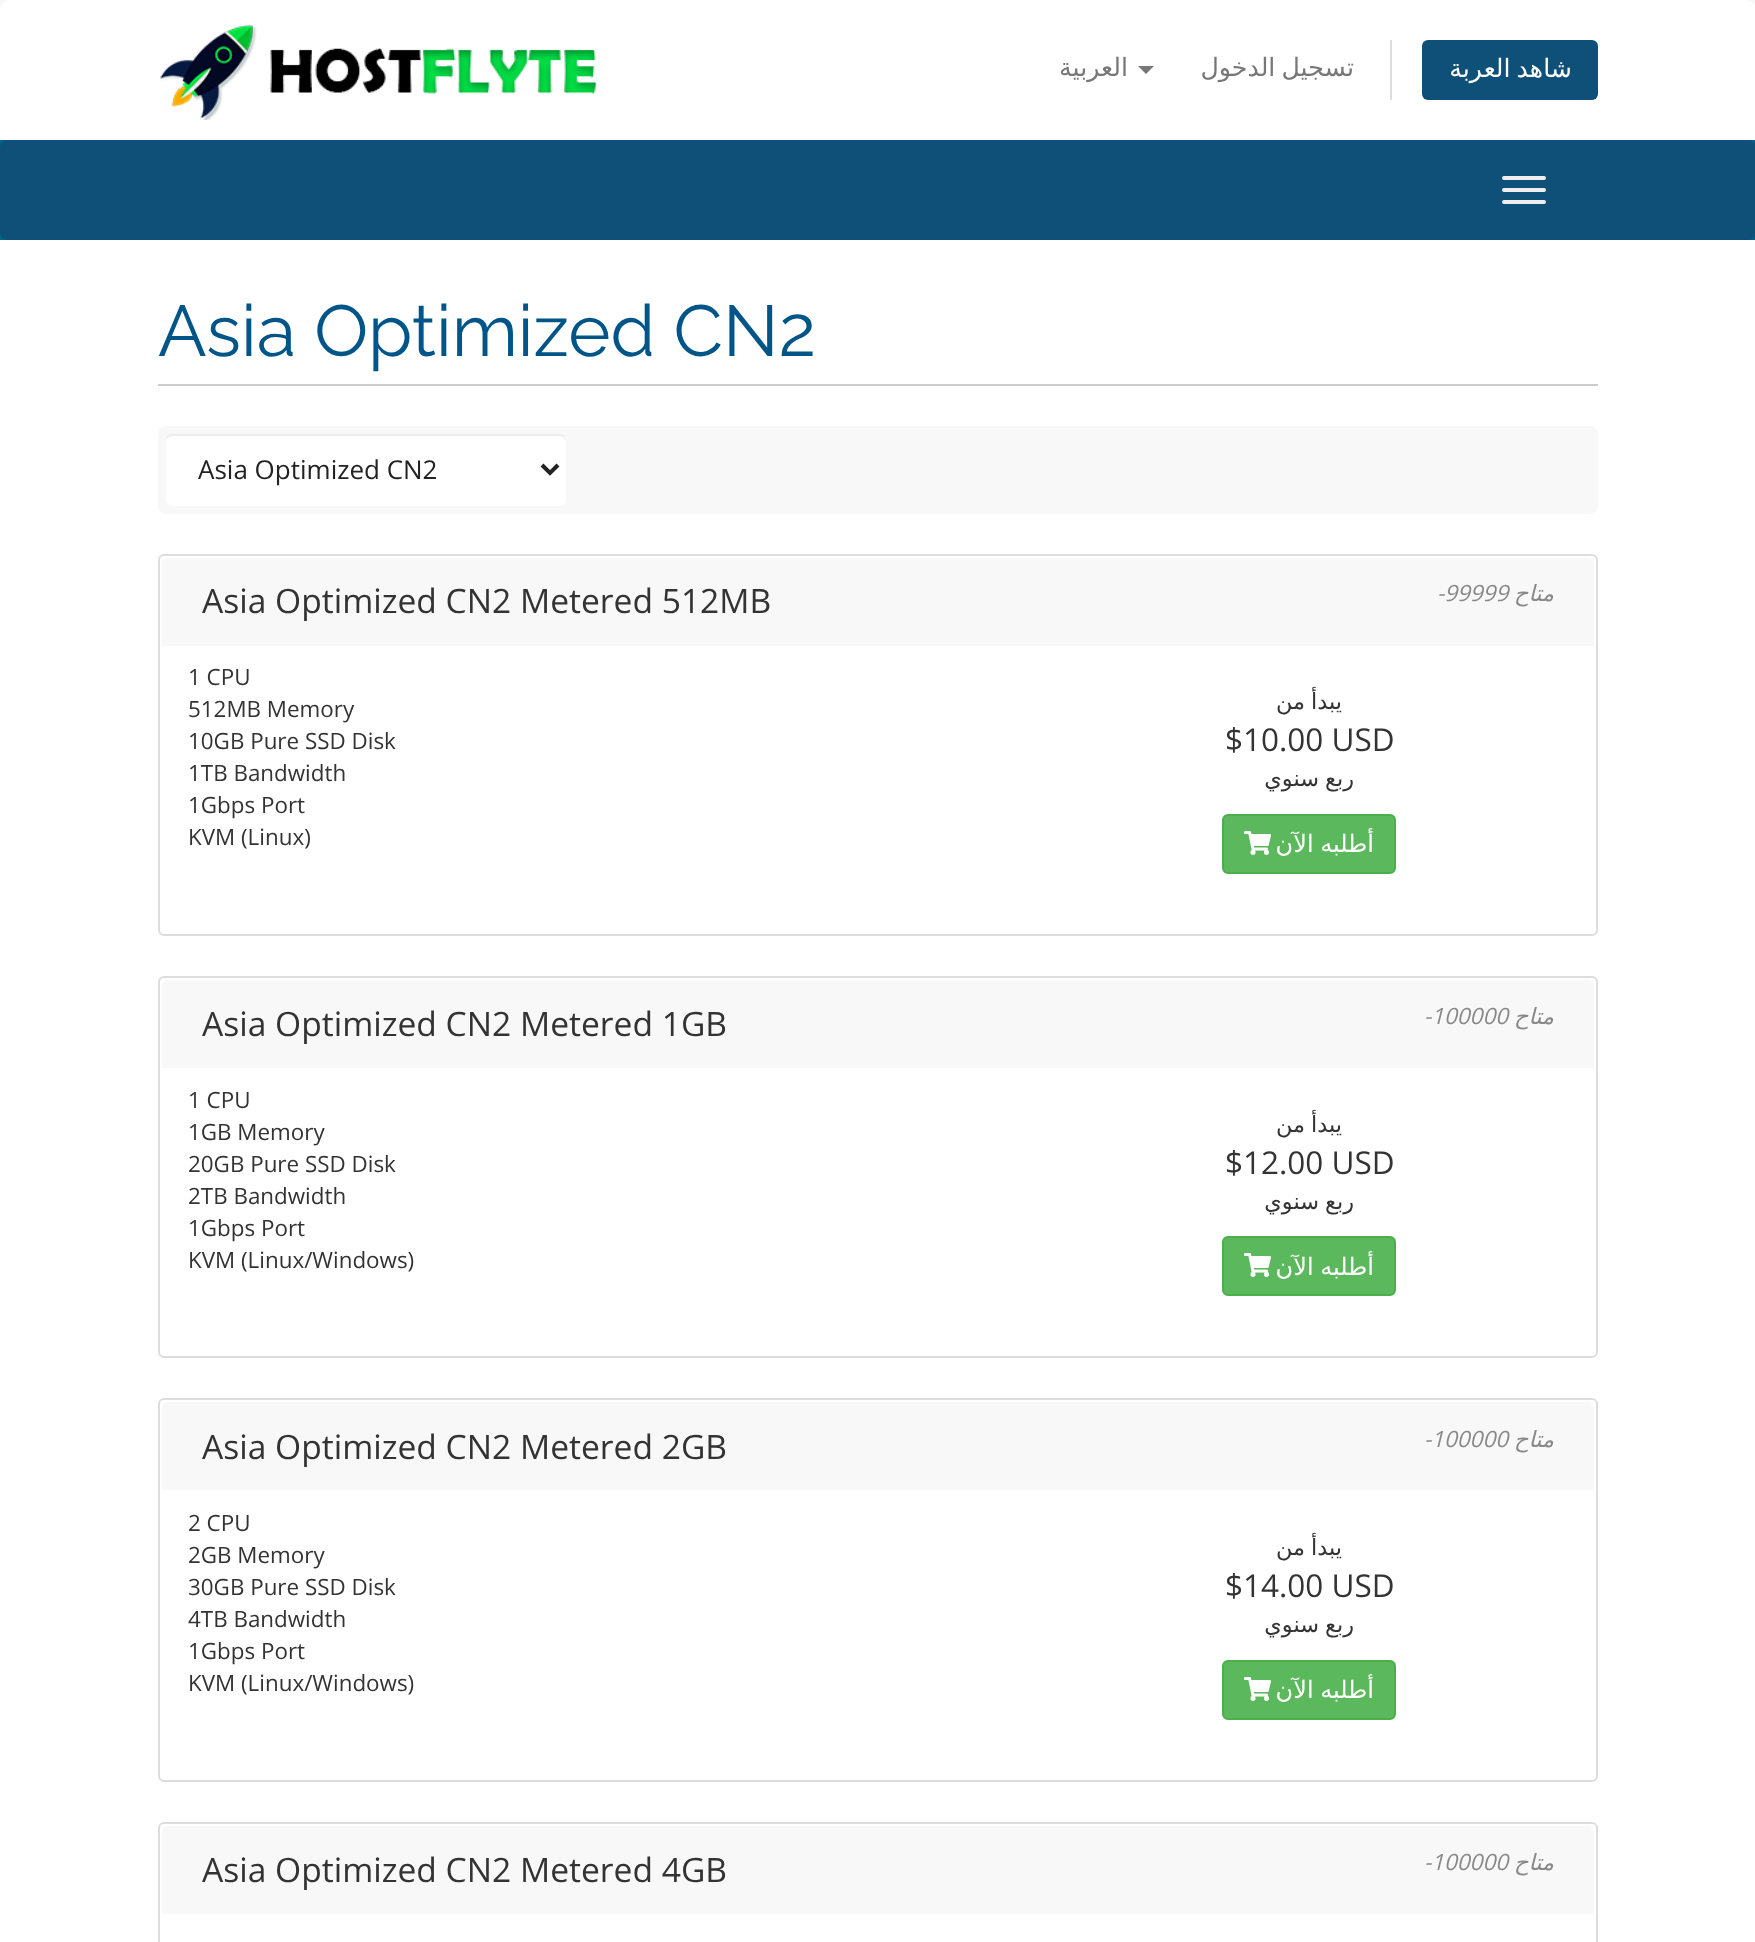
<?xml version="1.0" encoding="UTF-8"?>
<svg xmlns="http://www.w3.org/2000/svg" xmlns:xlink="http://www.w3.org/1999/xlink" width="1755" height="1942">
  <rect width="100%" height="100%" fill="#f8f8f8" />
  <path d="M 10 0 h 1736 c 5.5 0 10 4.5 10 10 v 130 h -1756 v -130 c 0 -5.5 4.5 -10 10 -10 z" fill="#ffffff" />
  <image x="159" y="24" width="438" height="96" xlink:href="image1.png" />
  <path d="M 1138 66 h 16 l -8 8 z" fill="#777777" />
  <rect x="1390" y="40" width="2" height="60" fill="#dddddd" />
  <rect x="1422" y="40" width="176" height="60" rx="6" fill="#0e5077" />
  <rect y="140" width="1755" height="100" fill="#006687" />
  <rect y="140" width="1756" height="100" rx="8" fill="#0e5077" />
  <rect x="1502" y="176" width="44" height="4" rx="2" fill="#eeeeee" />
  <rect x="1502" y="188" width="44" height="4" rx="2" fill="#eeeeee" />
  <rect x="1502" y="200" width="44" height="4" rx="2" fill="#eeeeee" />
  <rect y="240" width="1755" height="1702" fill="#ffffff" />
  <rect x="158" y="384" width="1440" height="2" fill="#cccccc" />
  <rect x="158" y="426" width="1440" height="88" rx="8" fill="#f8f8f8" />
  <rect x="166" y="434" width="400" height="72" rx="6" fill="#ffffff" />
  <path d="M 172 436 h 388 c 3 0 6 3 6 6 c 0 -4 -1 -8 -6 -8 h -388 c -5 0 -6 4 -6 8 c 0 -3 3 -6 6 -6 z" fill="#000000" fill-opacity="0.07" />
  <path d="M 542 465 l 8 8 l 8 -8" fill="none" stroke="#222222" stroke-width="4" />
  <rect x="159" y="555" width="1438" height="380" rx="5" fill="none" stroke="#dddddd" stroke-width="2" />
  <path d="M 168 558 h 1420 c 3.5 0 6 2.5 6 6 v 82 h -1432 v -82 c 0 -3.5 2.5 -6 6 -6 z" fill="#f8f8f8" />
  <rect x="1223" y="815" width="172" height="58" rx="5" fill="#5cb85c" stroke="#4cae4c" stroke-width="2" />
  <image x="1244" y="831" width="27" height="24" xlink:href="image2.png" />
  <rect x="159" y="977" width="1438" height="380" rx="5" fill="none" stroke="#dddddd" stroke-width="2" />
  <path d="M 168 980 h 1420 c 3.5 0 6 2.5 6 6 v 82 h -1432 v -82 c 0 -3.5 2.5 -6 6 -6 z" fill="#f8f8f8" />
  <rect x="1223" y="1237" width="172" height="58" rx="5" fill="#5cb85c" stroke="#4cae4c" stroke-width="2" />
  <image x="1244" y="1253" width="27" height="24" xlink:href="image2.png" />
  <rect x="159" y="1399" width="1438" height="382" rx="5" fill="none" stroke="#dddddd" stroke-width="2" />
  <path d="M 168 1402 h 1420 c 3.5 0 6 2.5 6 6 v 82 h -1432 v -82 c 0 -3.5 2.5 -6 6 -6 z" fill="#f8f8f8" />
  <rect x="1223" y="1661" width="172" height="58" rx="5" fill="#5cb85c" stroke="#4cae4c" stroke-width="2" />
  <image x="1244" y="1677" width="27" height="24" xlink:href="image2.png" />
  <rect x="159" y="1823" width="1438" height="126" rx="5" fill="none" stroke="#dddddd" stroke-width="2" />
  <path d="M 168 1826 h 1420 c 3.5 0 6 2.5 6 6 v 82 h -1432 v -82 c 0 -3.5 2.5 -6 6 -6 z" fill="#f8f8f8" />
  <text x="1128" y="76" style="font-family: DejaVu Sans; font-size: 25.25px; direction: rtl; fill: #777777">العربية</text>
  <text x="1354" y="76" word-spacing="-2" style="font-family: DejaVu Sans; font-size: 25.25px; direction: rtl; fill: #777777">تسجيل الدخول</text>
  <text x="1572" y="77" word-spacing="-2" style="font-family: DejaVu Sans; font-size: 25.25px; direction: rtl; fill: #ffffff">شاهد العربة</text>
  <text x="158" y="356" style="font-family: Raleway; font-size: 72px; fill: #005588">Asia Optimized CN2</text>
  <text x="198" y="479" style="font-family: Open Sans; font-size: 26px; fill: #222222">Asia Optimized CN2</text>
  <text x="202" y="613" style="font-family: Open Sans; font-size: 33.6px; fill: #333333">Asia Optimized CN2 Metered 512MB</text>
  <text x="1437" y="601" style="font-family: Open Sans; font-size: 22.4px; font-style: italic; fill: #888888">-99999</text>
  <text x="1554" y="601" style="font-family: DejaVu Sans; font-size: 22.4px; font-style: italic; direction: rtl; fill: #888888">متاح</text>
  <text x="188" y="685" style="font-family: Open Sans; font-size: 22.4px; fill: #333333">1 CPU</text>
  <text x="188" y="717" style="font-family: Open Sans; font-size: 22.4px; fill: #333333">512MB Memory</text>
  <text x="188" y="749" style="font-family: Open Sans; font-size: 22.4px; fill: #333333">10GB Pure SSD Disk</text>
  <text x="188" y="781" style="font-family: Open Sans; font-size: 22.4px; fill: #333333">1TB Bandwidth</text>
  <text x="188" y="813" style="font-family: Open Sans; font-size: 22.4px; fill: #333333">1Gbps Port</text>
  <text x="188" y="845" style="font-family: Open Sans; font-size: 22.4px; fill: #333333">KVM (Linux)</text>
  <text x="1342" y="709" word-spacing="-1" style="font-family: DejaVu Sans; font-size: 22.4px; direction: rtl; fill: #333333">يبدأ من</text>
  <text x="1225" y="751" style="font-family: Open Sans; font-size: 31.5px; fill: #333333">$10.00 USD</text>
  <text x="1354" y="786" word-spacing="-1" style="font-family: DejaVu Sans; font-size: 22.4px; direction: rtl; fill: #333333">ربع سنوي</text>
  <text x="1374" y="852" word-spacing="-1" style="font-family: DejaVu Sans; font-size: 24px; direction: rtl; fill: #ffffff">أطلبه الآن</text>
  <text x="202" y="1036" style="font-family: Open Sans; font-size: 33.6px; fill: #333333">Asia Optimized CN2 Metered 1GB</text>
  <text x="1424" y="1024" style="font-family: Open Sans; font-size: 22.4px; font-style: italic; fill: #888888">-100000</text>
  <text x="1554" y="1024" style="font-family: DejaVu Sans; font-size: 22.4px; font-style: italic; direction: rtl; fill: #888888">متاح</text>
  <text x="188" y="1108" style="font-family: Open Sans; font-size: 22.4px; fill: #333333">1 CPU</text>
  <text x="188" y="1140" style="font-family: Open Sans; font-size: 22.4px; fill: #333333">1GB Memory</text>
  <text x="188" y="1172" style="font-family: Open Sans; font-size: 22.4px; fill: #333333">20GB Pure SSD Disk</text>
  <text x="188" y="1204" style="font-family: Open Sans; font-size: 22.4px; fill: #333333">2TB Bandwidth</text>
  <text x="188" y="1236" style="font-family: Open Sans; font-size: 22.4px; fill: #333333">1Gbps Port</text>
  <text x="188" y="1268" style="font-family: Open Sans; font-size: 22.4px; fill: #333333">KVM (Linux/Windows)</text>
  <text x="1342" y="1132" word-spacing="-1" style="font-family: DejaVu Sans; font-size: 22.4px; direction: rtl; fill: #333333">يبدأ من</text>
  <text x="1225" y="1174" style="font-family: Open Sans; font-size: 31.5px; fill: #333333">$12.00 USD</text>
  <text x="1354" y="1209" word-spacing="-1" style="font-family: DejaVu Sans; font-size: 22.4px; direction: rtl; fill: #333333">ربع سنوي</text>
  <text x="1374" y="1275" word-spacing="-1" style="font-family: DejaVu Sans; font-size: 24px; direction: rtl; fill: #ffffff">أطلبه الآن</text>
  <text x="202" y="1459" style="font-family: Open Sans; font-size: 33.6px; fill: #333333">Asia Optimized CN2 Metered 2GB</text>
  <text x="1424" y="1447" style="font-family: Open Sans; font-size: 22.4px; font-style: italic; fill: #888888">-100000</text>
  <text x="1554" y="1447" style="font-family: DejaVu Sans; font-size: 22.4px; font-style: italic; direction: rtl; fill: #888888">متاح</text>
  <text x="188" y="1531" style="font-family: Open Sans; font-size: 22.4px; fill: #333333">2 CPU</text>
  <text x="188" y="1563" style="font-family: Open Sans; font-size: 22.4px; fill: #333333">2GB Memory</text>
  <text x="188" y="1595" style="font-family: Open Sans; font-size: 22.4px; fill: #333333">30GB Pure SSD Disk</text>
  <text x="188" y="1627" style="font-family: Open Sans; font-size: 22.4px; fill: #333333">4TB Bandwidth</text>
  <text x="188" y="1659" style="font-family: Open Sans; font-size: 22.4px; fill: #333333">1Gbps Port</text>
  <text x="188" y="1691" style="font-family: Open Sans; font-size: 22.4px; fill: #333333">KVM (Linux/Windows)</text>
  <text x="1342" y="1555" word-spacing="-1" style="font-family: DejaVu Sans; font-size: 22.4px; direction: rtl; fill: #333333">يبدأ من</text>
  <text x="1225" y="1597" style="font-family: Open Sans; font-size: 31.5px; fill: #333333">$14.00 USD</text>
  <text x="1354" y="1632" word-spacing="-1" style="font-family: DejaVu Sans; font-size: 22.4px; direction: rtl; fill: #333333">ربع سنوي</text>
  <text x="1374" y="1698" word-spacing="-1" style="font-family: DejaVu Sans; font-size: 24px; direction: rtl; fill: #ffffff">أطلبه الآن</text>
  <text x="202" y="1882" style="font-family: Open Sans; font-size: 33.6px; fill: #333333">Asia Optimized CN2 Metered 4GB</text>
  <text x="1424" y="1870" style="font-family: Open Sans; font-size: 22.4px; font-style: italic; fill: #888888">-100000</text>
  <text x="1554" y="1870" style="font-family: DejaVu Sans; font-size: 22.4px; font-style: italic; direction: rtl; fill: #888888">متاح</text>
</svg>
